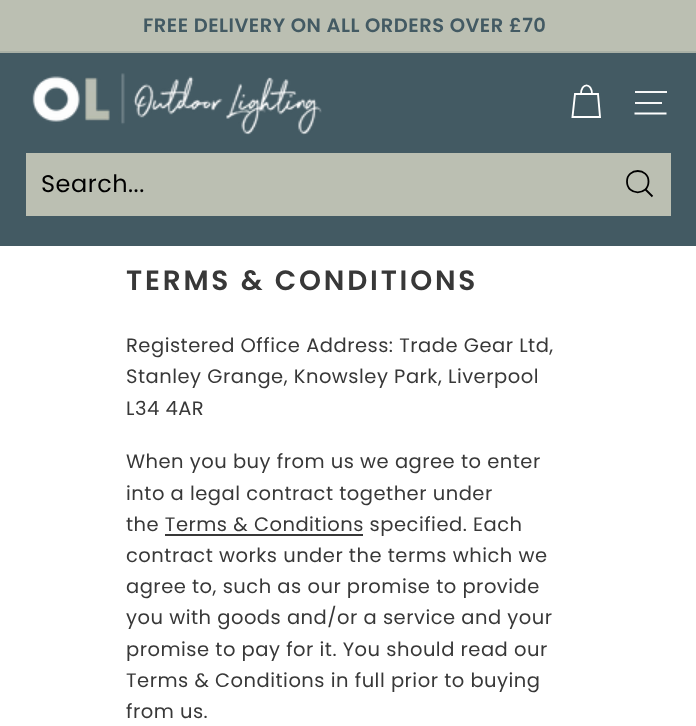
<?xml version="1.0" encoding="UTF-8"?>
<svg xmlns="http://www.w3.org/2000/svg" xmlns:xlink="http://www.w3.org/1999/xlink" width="696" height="726">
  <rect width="100%" height="100%" fill="#ffffff" />
  <rect width="696" height="51" fill="#bbbfb2" />
  <rect y="51" width="696" height="2" fill="#a9b0a6" />
  <rect y="53" width="696" height="193" fill="#435a63" />
  <image x="32" y="73" width="290" height="62" xlink:href="image1.png" />
  <path d="M 581 94 c 0 -11.5 11 -11.5 11 0 m -17 0 h 23 l 2 23 h -27.5 z" fill="none" stroke="#ffffff" stroke-width="1.9" />
  <rect x="635" y="91" width="32" height="2" fill="#f6f7f7" />
  <rect x="635" y="102" width="27" height="2" fill="#f6f7f7" />
  <path d="M 634.5 113.5 h 32" fill="none" stroke="#ffffff" stroke-width="1.9" />
  <rect x="26" y="153" width="645" height="63" fill="#bbbfb2" />
  <path d="M 648.5 181.5 c 0 14.5 -21.5 14.5 -21.5 0 c 0 -14 21.5 -14 21.5 0 z m 4 15 l -7 -7" fill="none" stroke="#000000" stroke-width="1.8" />
  <rect x="165" y="534" width="198" height="2" fill="#383838" />
  <text x="143" y="32" style="font-family: Poppins; font-size: 19.5px; font-weight: 600; letter-spacing: 0.5px; fill: #435a63">FREE DELIVERY ON ALL ORDERS OVER £70</text>
  <text x="41" y="192" style="font-family: Poppins; font-size: 24px; letter-spacing: 0.5px; fill: #000000">Search...</text>
  <text x="126" y="290" style="font-family: Poppins; font-size: 28px; font-weight: 600; letter-spacing: 2.8px; fill: #383838">TERMS &amp; CONDITIONS</text>
  <text x="126" y="352" style="font-family: Poppins; font-size: 19.5px; letter-spacing: 0.5px; fill: #383838">Registered Office Address: Trade Gear Ltd,</text>
  <text x="126" y="383" style="font-family: Poppins; font-size: 19.5px; letter-spacing: 0.5px; fill: #383838">Stanley Grange, Knowsley Park, Liverpool</text>
  <text x="126" y="415" style="font-family: Poppins; font-size: 19.5px; letter-spacing: 0.5px; fill: #383838">L34 4AR</text>
  <text x="126" y="468" style="font-family: Poppins; font-size: 19.5px; letter-spacing: 0.5px; fill: #383838">When you buy from us we agree to enter</text>
  <text x="126" y="500" style="font-family: Poppins; font-size: 19.5px; letter-spacing: 0.5px; fill: #383838">into a legal contract together under</text>
  <text x="126" y="531" style="font-family: Poppins; font-size: 19.5px; letter-spacing: 0.5px; fill: #383838">the Terms &amp; Conditions specified. Each</text>
  <text x="126" y="562" style="font-family: Poppins; font-size: 19.5px; letter-spacing: 0.5px; fill: #383838">contract works under the terms which we</text>
  <text x="126" y="593" style="font-family: Poppins; font-size: 19.5px; letter-spacing: 0.5px; fill: #383838">agree to, such as our promise to provide</text>
  <text x="126" y="624" style="font-family: Poppins; font-size: 19.5px; letter-spacing: 0.5px; fill: #383838">you with goods and/or a service and your</text>
  <text x="126" y="656" style="font-family: Poppins; font-size: 19.5px; letter-spacing: 0.5px; fill: #383838">promise to pay for it. You should read our</text>
  <text x="126" y="687" style="font-family: Poppins; font-size: 19.5px; letter-spacing: 0.5px; fill: #383838">Terms &amp; Conditions in full prior to buying</text>
  <text x="126" y="718" style="font-family: Poppins; font-size: 19.5px; letter-spacing: 0.5px; fill: #383838">from us.</text>
</svg>
